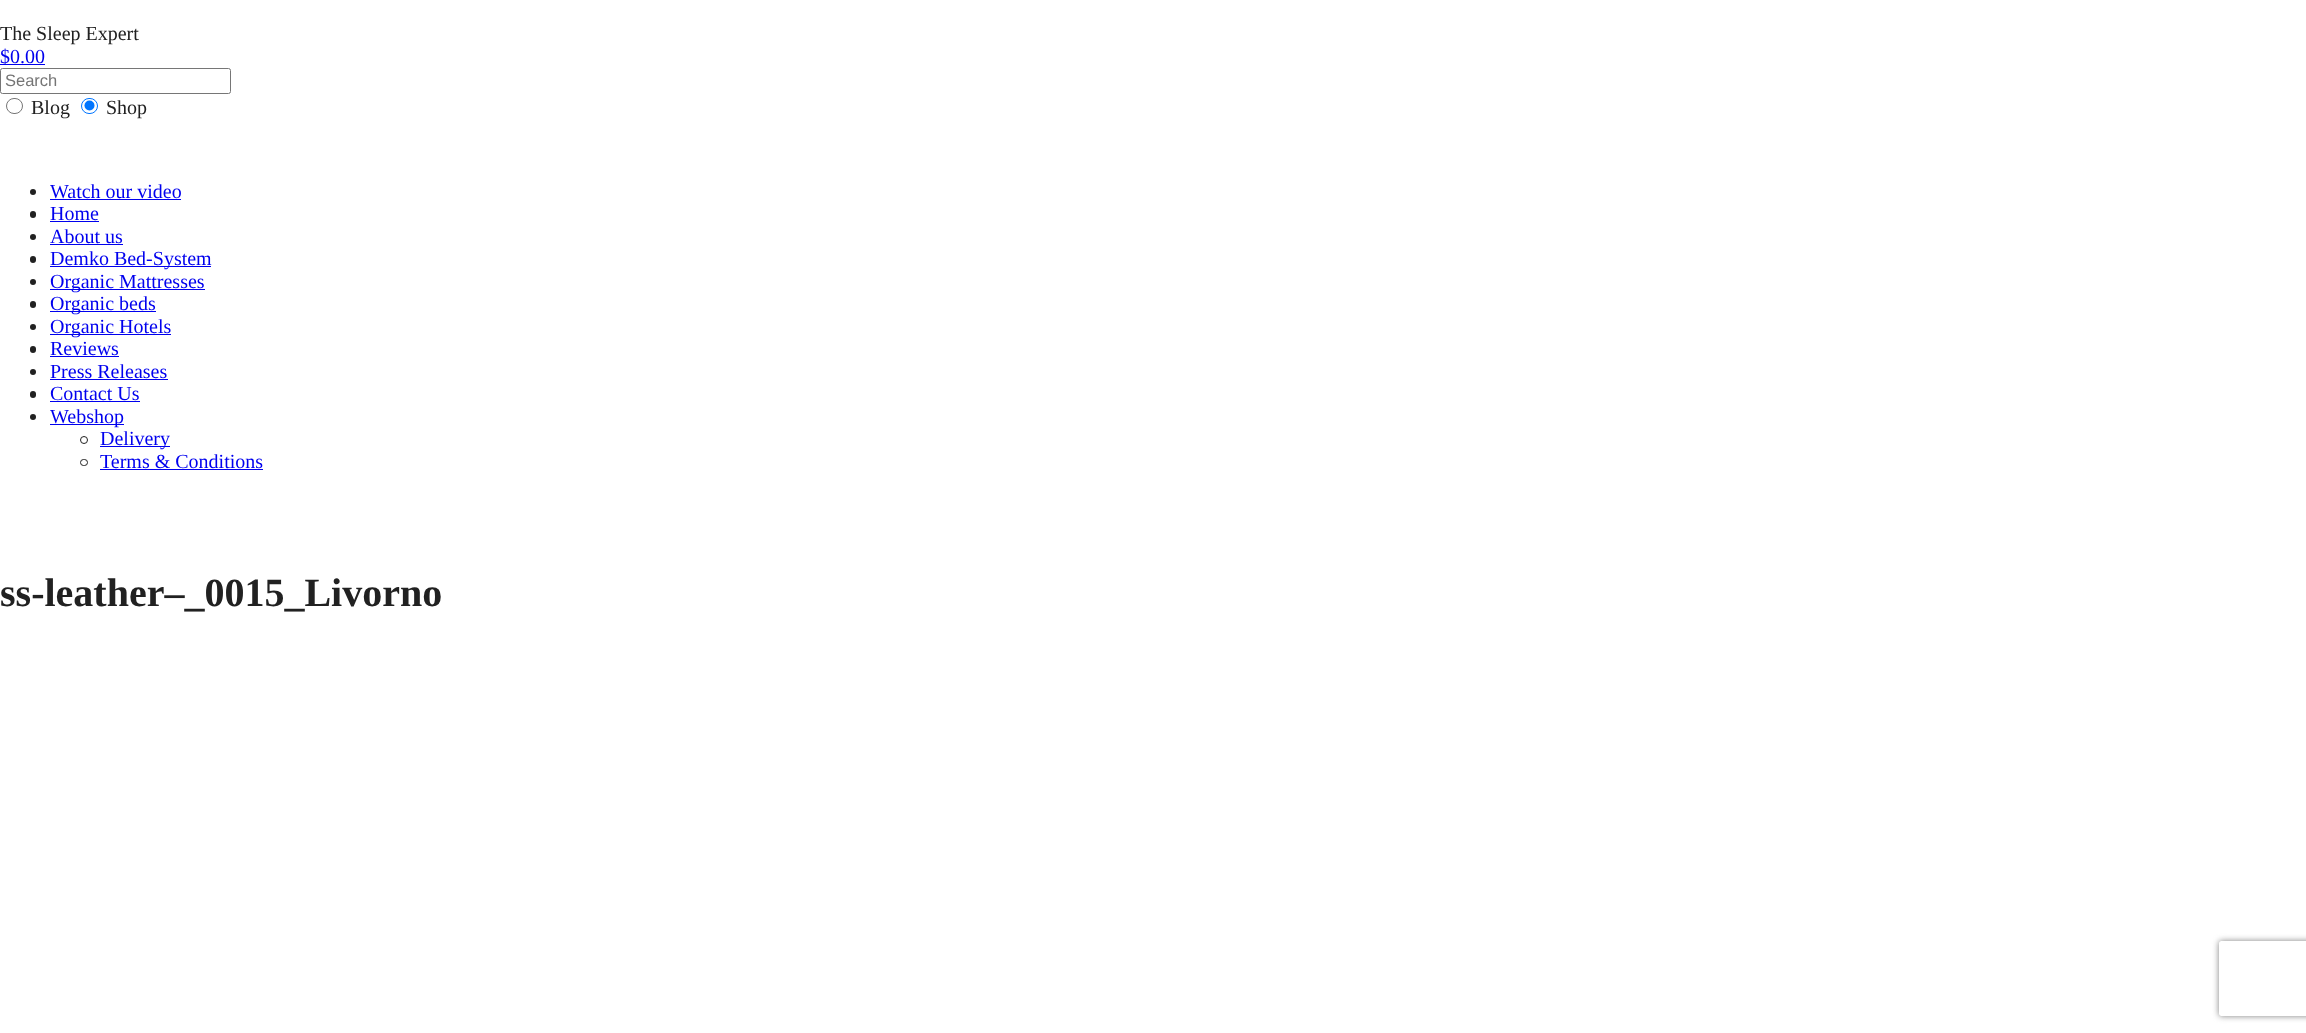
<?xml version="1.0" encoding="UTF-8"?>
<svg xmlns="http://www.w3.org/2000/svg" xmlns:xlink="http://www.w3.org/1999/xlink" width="2306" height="1033">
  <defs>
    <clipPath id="clip1"><path d="M 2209 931 h 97 v 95 h -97 z m 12.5 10 h 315 c 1.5 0 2.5 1 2.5 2.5 v 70 c 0 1.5 -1 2.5 -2.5 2.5 h -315 c -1.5 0 -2.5 -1 -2.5 -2.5 v -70 c 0 -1.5 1 -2.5 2.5 -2.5 z" clip-rule="evenodd" /></clipPath>
  </defs>
  <rect width="100%" height="100%" fill="#ffffff" />
  <rect y="64" width="45" height="1" fill="#0000ee" />
  <rect x="0.5" y="68.5" width="230" height="25" rx="2" fill="none" stroke="#767676" />
  <rect x="6.5" y="98.5" width="16" height="15" rx="7.5" fill="none" stroke="#767676" />
  <rect x="81.5" y="98.5" width="16" height="15" rx="7.5" fill="none" stroke="#0075ff" />
  <circle cx="89.5" cy="105.5" r="5" fill="#0075ff" />
  <circle cx="33" cy="192" r="3" fill="#212121" />
  <rect x="50" y="199" width="131" height="1" fill="#0000ee" />
  <rect x="30" y="211" width="6" height="7" rx="3" fill="#212121" />
  <rect x="50" y="221" width="49" height="1" fill="#0000ee" />
  <circle cx="33" cy="237" r="3" fill="#212121" />
  <rect x="50" y="244" width="73" height="1" fill="#0000ee" />
  <rect x="30" y="256" width="6" height="7" rx="3" fill="#212121" />
  <rect x="50" y="266" width="161" height="1" fill="#0000ee" />
  <circle cx="33" cy="282" r="3" fill="#212121" />
  <rect x="50" y="289" width="155" height="1" fill="#0000ee" />
  <rect x="30" y="301" width="6" height="7" rx="3" fill="#212121" />
  <rect x="50" y="311" width="106" height="1" fill="#0000ee" />
  <circle cx="33" cy="327" r="3" fill="#212121" />
  <rect x="50" y="334" width="121" height="1" fill="#0000ee" />
  <rect x="30" y="346" width="6" height="7" rx="3" fill="#212121" />
  <rect x="50" y="356" width="69" height="1" fill="#0000ee" />
  <circle cx="33" cy="372" r="3" fill="#212121" />
  <rect x="50" y="379" width="118" height="1" fill="#0000ee" />
  <rect x="30" y="391" width="6" height="7" rx="3" fill="#212121" />
  <rect x="50" y="401" width="90" height="1" fill="#0000ee" />
  <circle cx="33" cy="417" r="3" fill="#212121" />
  <rect x="50" y="424" width="74" height="1" fill="#0000ee" />
  <circle cx="84" cy="440" r="3.5" fill="none" stroke="#212121" />
  <rect x="100" y="446" width="70" height="1" fill="#0000ee" />
  <rect x="80.5" y="459.5" width="7" height="6" rx="3" fill="none" stroke="#212121" />
  <rect x="100" y="469" width="163" height="1" fill="#0000ee" />
  <g clip-path="url(#clip1)">
    <rect x="2219" y="941" width="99" height="75" rx="2.5" fill="#808080" filter="blur(3px)" />
  </g>
  <text x="0" y="40" style="font-family: Liberation Serif; font-size: 20px; fill: #212121">The Sleep Expert</text>
  <text x="0" y="63" style="font-family: Liberation Serif; font-size: 20px; fill: #0000ee">$0.00</text>
  <text x="5" y="86" style="font-family: Liberation Sans; font-size: 16.5px; fill: #757575">Search</text>
  <text x="31" y="114" style="font-family: Liberation Serif; font-size: 20px; fill: #212121">Blog</text>
  <text x="106" y="114" style="font-family: Liberation Serif; font-size: 20px; fill: #212121">Shop</text>
  <text x="50" y="198" style="font-family: Liberation Serif; font-size: 20px; fill: #0000ee">Watch our video</text>
  <text x="50" y="220" style="font-family: Liberation Serif; font-size: 20px; fill: #0000ee">Home</text>
  <text x="50" y="243" style="font-family: Liberation Serif; font-size: 20px; fill: #0000ee">About us</text>
  <text x="50" y="265" style="font-family: Liberation Serif; font-size: 20px; fill: #0000ee">Demko Bed-System</text>
  <text x="50" y="288" style="font-family: Liberation Serif; font-size: 20px; fill: #0000ee">Organic Mattresses</text>
  <text x="50" y="310" style="font-family: Liberation Serif; font-size: 20px; fill: #0000ee">Organic beds</text>
  <text x="50" y="333" style="font-family: Liberation Serif; font-size: 20px; fill: #0000ee">Organic Hotels</text>
  <text x="50" y="355" style="font-family: Liberation Serif; font-size: 20px; fill: #0000ee">Reviews</text>
  <text x="50" y="378" style="font-family: Liberation Serif; font-size: 20px; fill: #0000ee">Press Releases</text>
  <text x="50" y="400" style="font-family: Liberation Serif; font-size: 20px; fill: #0000ee">Contact Us</text>
  <text x="50" y="423" style="font-family: Liberation Serif; font-size: 20px; fill: #0000ee">Webshop</text>
  <text x="100" y="445" style="font-family: Liberation Serif; font-size: 20px; fill: #0000ee">Delivery</text>
  <text x="100" y="468" style="font-family: Liberation Serif; font-size: 20px; fill: #0000ee">Terms &amp; Conditions</text>
  <text x="0" y="606" style="font-family: Liberation Serif; font-size: 40px; font-weight: bold; fill: #212121">ss-leather–_0015_Livorno</text>
</svg>
